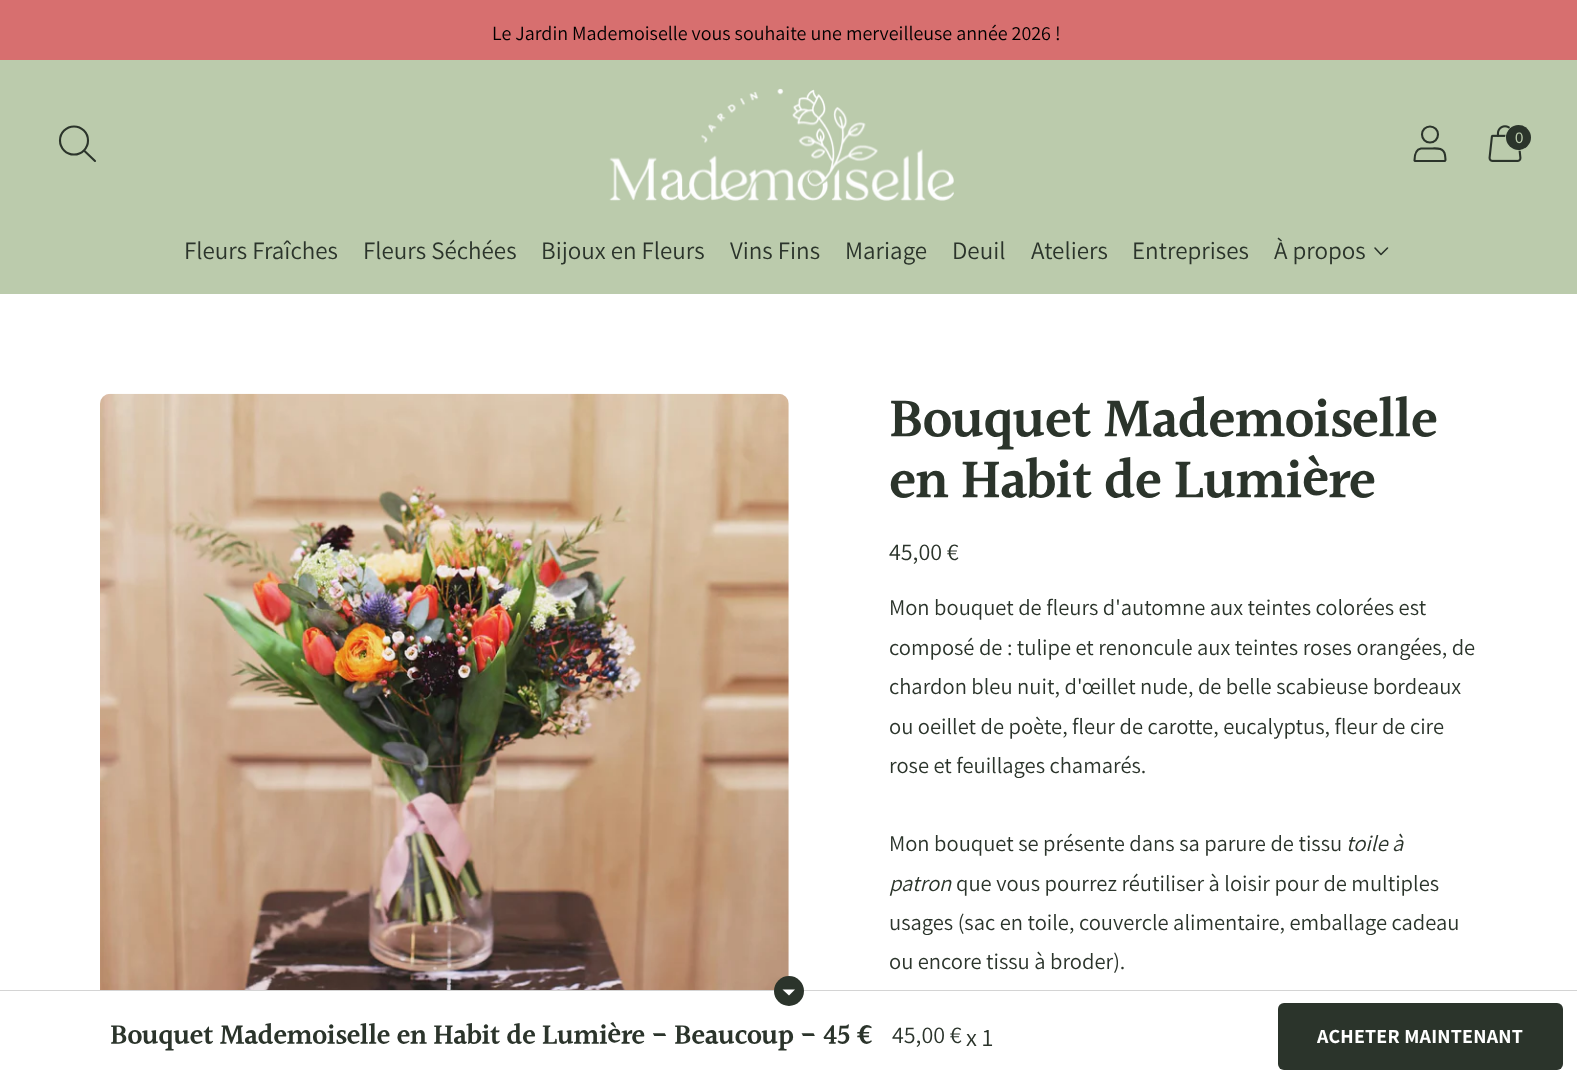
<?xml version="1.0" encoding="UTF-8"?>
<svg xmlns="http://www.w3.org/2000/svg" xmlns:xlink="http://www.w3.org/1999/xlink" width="1577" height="1081">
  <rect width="100%" height="100%" fill="#ffffff" />
  <rect width="1577" height="60" fill="#d76f6f" />
  <rect y="60" width="1577" height="234" fill="#bbcbac" />
  <circle cx="74" cy="140.5" r="14" fill="none" stroke="#2b342b" stroke-width="2.1" />
  <path d="M 84.5 151 l 10.5 10" fill="none" stroke="#2b342b" stroke-width="2.1" stroke-linecap="round" stroke-linejoin="round" />
  <image x="609" y="88" width="345" height="113" xlink:href="image1.png" />
  <circle cx="1430" cy="134.5" r="8" fill="none" stroke="#2b342b" stroke-width="2.1" />
  <path d="M 1445 161 c 1 0 0 -5.5 0 -6 c -1.5 -8 -9 -6.5 -15 -6.5 h -9 c -5.5 1 -6.5 7 -6.5 12 l 0.5 0.5 z" fill="none" stroke="#2b342b" stroke-width="2.1" stroke-linecap="round" stroke-linejoin="round" />
  <image x="1488" y="125" width="34" height="37" xlink:href="image2.png" />
  <rect x="1505.5" y="124.5" width="27" height="26" rx="13" fill="none" stroke="#bbcbac" />
  <circle cx="1518.5" cy="137.5" r="12.5" fill="#2b342b" />
  <path d="M 1375 248 l 6 6.5 l 6.5 -6.5" fill="none" stroke="#2b342b" stroke-width="1.6" stroke-linecap="round" stroke-linejoin="round" />
  <image x="100" y="393" width="689" height="597" xlink:href="image3.png" />
  <rect y="990" width="1577" height="1" fill="#d4d4d4" />
  <circle cx="789" cy="991" r="15" fill="#2b342b" />
  <path d="M 782.5 989.5 l 6.5 6 l 6 -6 z" fill="#ffffff" />
  <rect x="1278" y="1003" width="285" height="67" rx="6" fill="#2b342b" />
  <text x="492" y="40" style="font-family: Assistant; font-size: 20px; fill: #000000">Le Jardin Mademoiselle vous souhaite une merveilleuse année 2026 !</text>
  <text x="1515" y="143" style="font-family: Liberation Sans; font-size: 15px; fill: #bbcbac">0</text>
  <text x="184" y="259" style="font-family: Assistant; font-size: 25px; fill: #2b342b">Fleurs Fraîches</text>
  <text x="363" y="259" style="font-family: Assistant; font-size: 25px; fill: #2b342b">Fleurs Séchées</text>
  <text x="541" y="259" style="font-family: Assistant; font-size: 25px; fill: #2b342b">Bijoux en Fleurs</text>
  <text x="730" y="259" style="font-family: Assistant; font-size: 25px; fill: #2b342b">Vins Fins</text>
  <text x="845" y="259" style="font-family: Assistant; font-size: 25px; fill: #2b342b">Mariage</text>
  <text x="952" y="259" style="font-family: Assistant; font-size: 25px; fill: #2b342b">Deuil</text>
  <text x="1031" y="259" style="font-family: Assistant; font-size: 25px; fill: #2b342b">Ateliers</text>
  <text x="1132" y="259" style="font-family: Assistant; font-size: 25px; fill: #2b342b">Entreprises</text>
  <text x="1274" y="259" style="font-family: Assistant; font-size: 25px; fill: #2b342b">À propos</text>
  <text x="889" y="439" style="font-family: Halant; font-size: 56.25px; font-weight: 600; letter-spacing: -1.4px; fill: #2b342b">Bouquet Mademoiselle</text>
  <text x="889" y="500" style="font-family: Halant; font-size: 56.25px; font-weight: 600; letter-spacing: -1.4px; fill: #2b342b">en Habit de Lumière</text>
  <text x="889" y="560" style="font-family: Assistant; font-size: 24px; fill: #2b342b">45,00 €</text>
  <text x="889" y="615" style="font-family: Assistant; font-size: 22.5px; fill: #2b342b">Mon bouquet de fleurs d'automne aux teintes colorées est</text>
  <text x="889" y="655" style="font-family: Assistant; font-size: 22.5px; fill: #2b342b">composé de : tulipe et renoncule aux teintes roses orangées, de</text>
  <text x="889" y="694" style="font-family: Assistant; font-size: 22.5px; fill: #2b342b">chardon bleu nuit, d'œillet nude, de belle scabieuse bordeaux</text>
  <text x="889" y="734" style="font-family: Assistant; font-size: 22.5px; fill: #2b342b">ou oeillet de poète, fleur de carotte, eucalyptus, fleur de cire</text>
  <text x="889" y="773" style="font-family: Assistant; font-size: 22.5px; fill: #2b342b">rose et feuillages chamarés.</text>
  <text x="889" y="851" style="font-family: Assistant; font-size: 22.5px; fill: #2b342b">Mon bouquet se présente dans sa parure de tissu</text>
  <text x="1346" y="851" style="font-family: Assistant; font-size: 22.5px; font-style: italic; fill: #2b342b">toile à</text>
  <text x="889" y="891" style="font-family: Assistant; font-size: 22.5px; font-style: italic; fill: #2b342b">patron</text>
  <text x="956" y="891" style="font-family: Assistant; font-size: 22.5px; fill: #2b342b">que vous pourrez réutiliser à loisir pour de multiples</text>
  <text x="889" y="930" style="font-family: Assistant; font-size: 22.5px; fill: #2b342b">usages (sac en toile, couvercle alimentaire, emballage cadeau</text>
  <text x="889" y="969" style="font-family: Assistant; font-size: 22.5px; fill: #2b342b">ou encore tissu à broder).</text>
  <text x="110" y="1045" style="font-family: Halant; font-size: 28.75px; font-weight: 600; letter-spacing: -0.72px; fill: #2b342b">Bouquet Mademoiselle en Habit de Lumière - Beaucoup - 45 €</text>
  <text x="892" y="1043" style="font-family: Assistant; font-size: 24px; fill: #2b342b">45,00 €</text>
  <text x="966" y="1046" style="font-family: Assistant; font-size: 25px; fill: #2b342b">x 1</text>
  <text x="1317" y="1043" style="font-family: Assistant; font-size: 20px; font-weight: bold; letter-spacing: 0.25px; fill: #ffffff">ACHETER MAINTENANT</text>
</svg>
